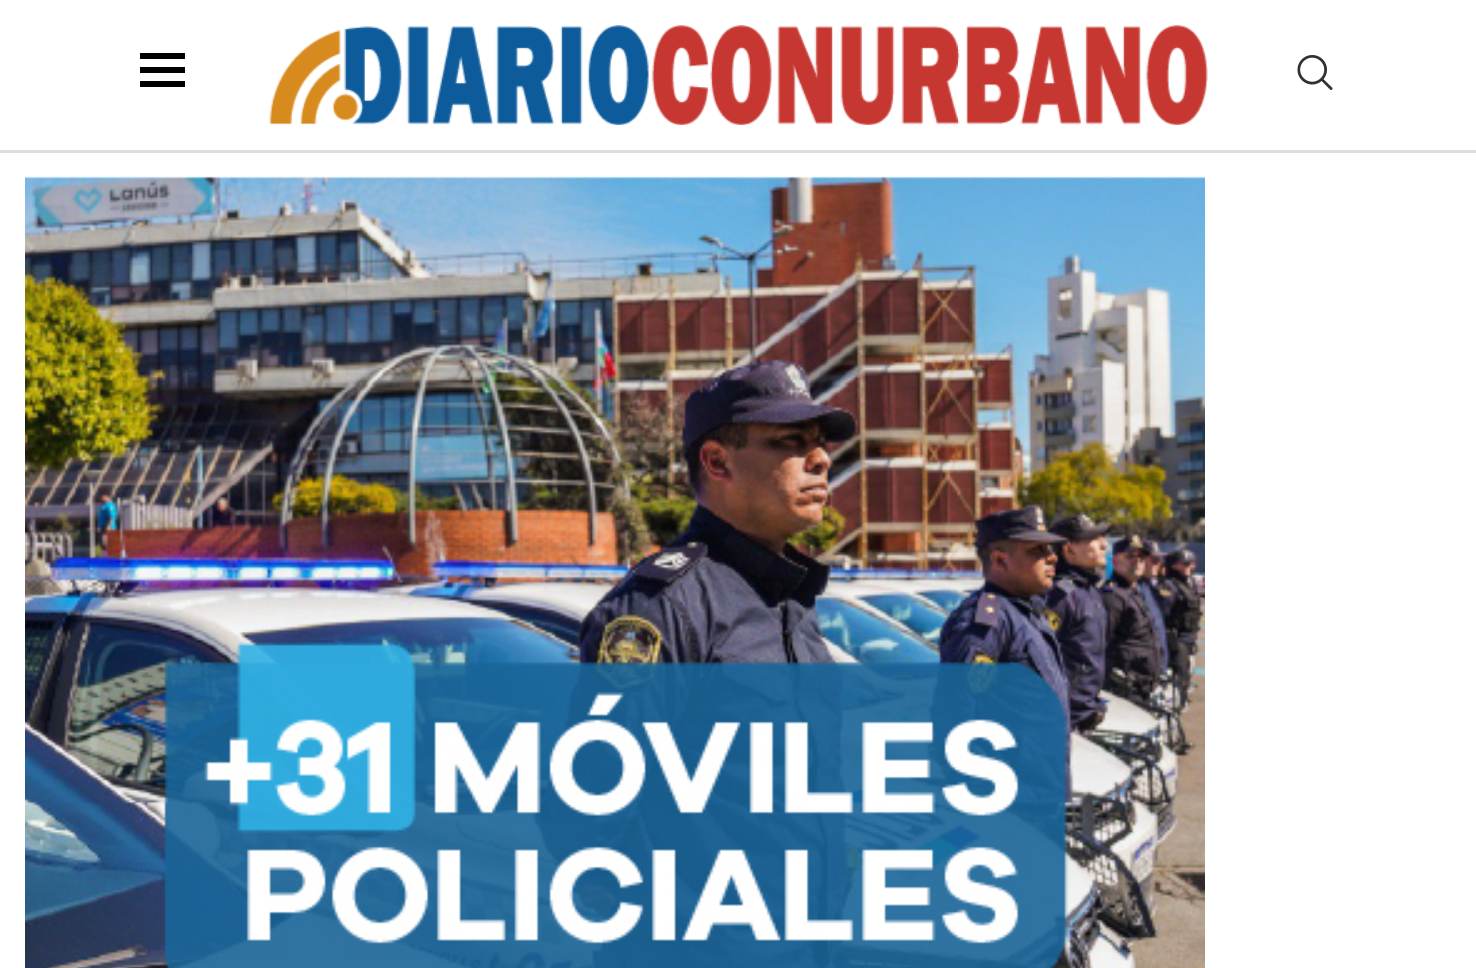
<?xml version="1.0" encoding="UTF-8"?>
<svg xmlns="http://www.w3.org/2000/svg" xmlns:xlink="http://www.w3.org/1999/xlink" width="1476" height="968">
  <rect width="100%" height="100%" fill="#ffffff" />
  <rect y="150" width="1476" height="3" fill="#dedede" />
  <rect x="140" y="53" width="45" height="6" fill="#000000" />
  <rect x="140" y="67" width="45" height="6" fill="#000000" />
  <rect x="140" y="81" width="45" height="6" fill="#000000" />
  <image x="269" y="25" width="939" height="100" xlink:href="image1.png" />
  <image x="1297" y="55" width="36" height="35" xlink:href="image2.png" />
  <image x="25" y="176" width="1180" height="792" xlink:href="image3.png" />
</svg>
